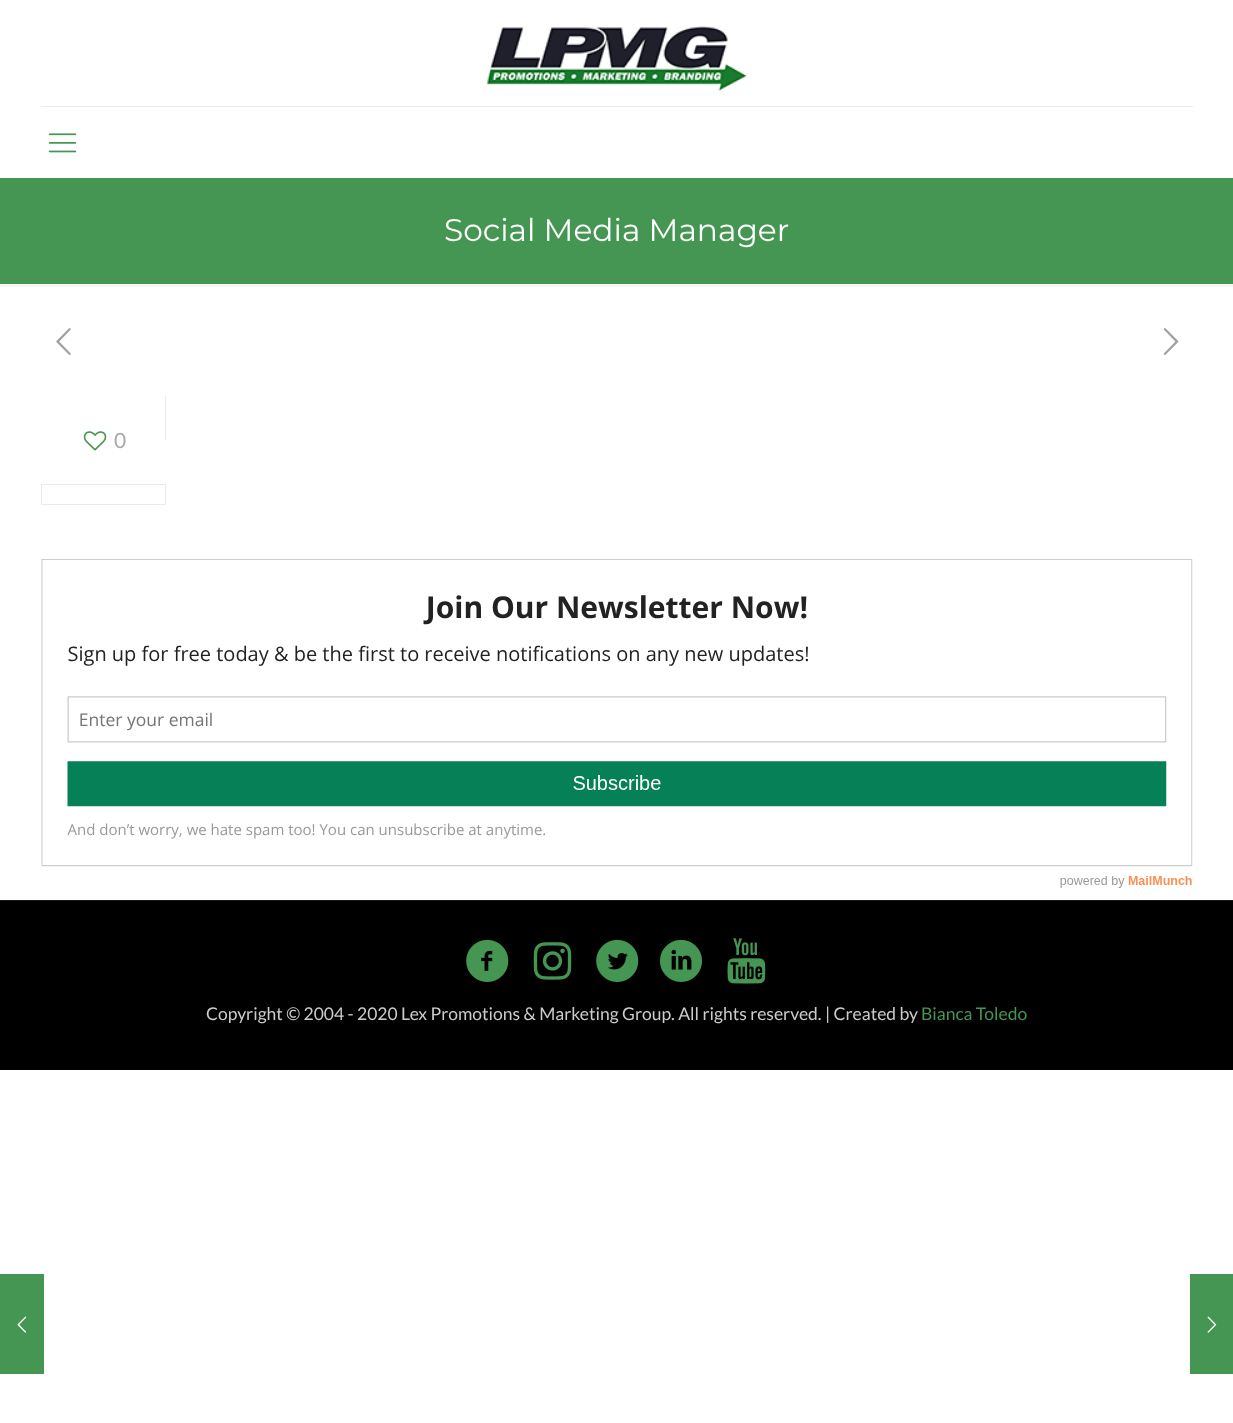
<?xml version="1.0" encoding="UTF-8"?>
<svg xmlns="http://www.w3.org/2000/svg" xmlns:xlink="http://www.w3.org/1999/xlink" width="1233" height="1423">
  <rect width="100%" height="100%" fill="#ffffff" />
  <rect x="41" y="106" width="1152" height="1" fill="#ebebeb" />
  <image x="486" y="26" width="261" height="66" xlink:href="image1.png" />
  <image x="48" y="133" width="29" height="20" xlink:href="image2.png" />
  <rect y="178" width="1233" height="106" fill="#449652" />
  <rect y="284" width="1233" height="3" fill="#f5f5f5" />
  <image x="56" y="328" width="15" height="27" xlink:href="image3.png" />
  <image x="1163" y="328" width="16" height="27" xlink:href="image4.png" />
  <image x="83" y="431" width="24" height="20" xlink:href="image5.png" />
  <rect x="165" y="396" width="1" height="44" fill="#ebebeb" />
  <rect x="41.5" y="484.5" width="124" height="20" fill="none" stroke="#ebebeb" />
  <image x="41" y="559" width="1152" height="329" xlink:href="image6.png" />
  <rect y="901" width="1233" height="169" fill="#000000" />
  <rect y="900" width="1233" height="1" fill="#1a1a1a" />
  <image x="466" y="939" width="43" height="43" xlink:href="image7.png" />
  <image x="533" y="942" width="39" height="38" xlink:href="image8.png" />
  <image x="596" y="939" width="43" height="43" xlink:href="image9.png" />
  <image x="660" y="939" width="42" height="43" xlink:href="image10.png" />
  <image x="727" y="938" width="39" height="46" xlink:href="image11.png" />
  <rect y="1274" width="44" height="100" fill="#449652" />
  <image x="17" y="1316" width="10" height="17" xlink:href="image12.png" />
  <rect x="1190" y="1274" width="43" height="100" fill="#449652" />
  <image x="1207" y="1316" width="10" height="17" xlink:href="image13.png" />
  <text x="444" y="241" style="font-family: Montserrat; font-size: 31.25px; fill: #ffffff">Social Media Manager</text>
  <text x="114" y="448" style="font-family: Lato; font-size: 21px; fill: #a8a8a8">0</text>
  <text x="206" y="1020" style="font-family: Lato; font-size: 17.5px; fill: #cccccc">Copyright © 2004 - 2020 Lex Promotions &amp; Marketing Group. All rights reserved. | Created by</text>
  <text x="921" y="1020" style="font-family: Lato; font-size: 17.5px; fill: #449652">Bianca Toledo</text>
</svg>
